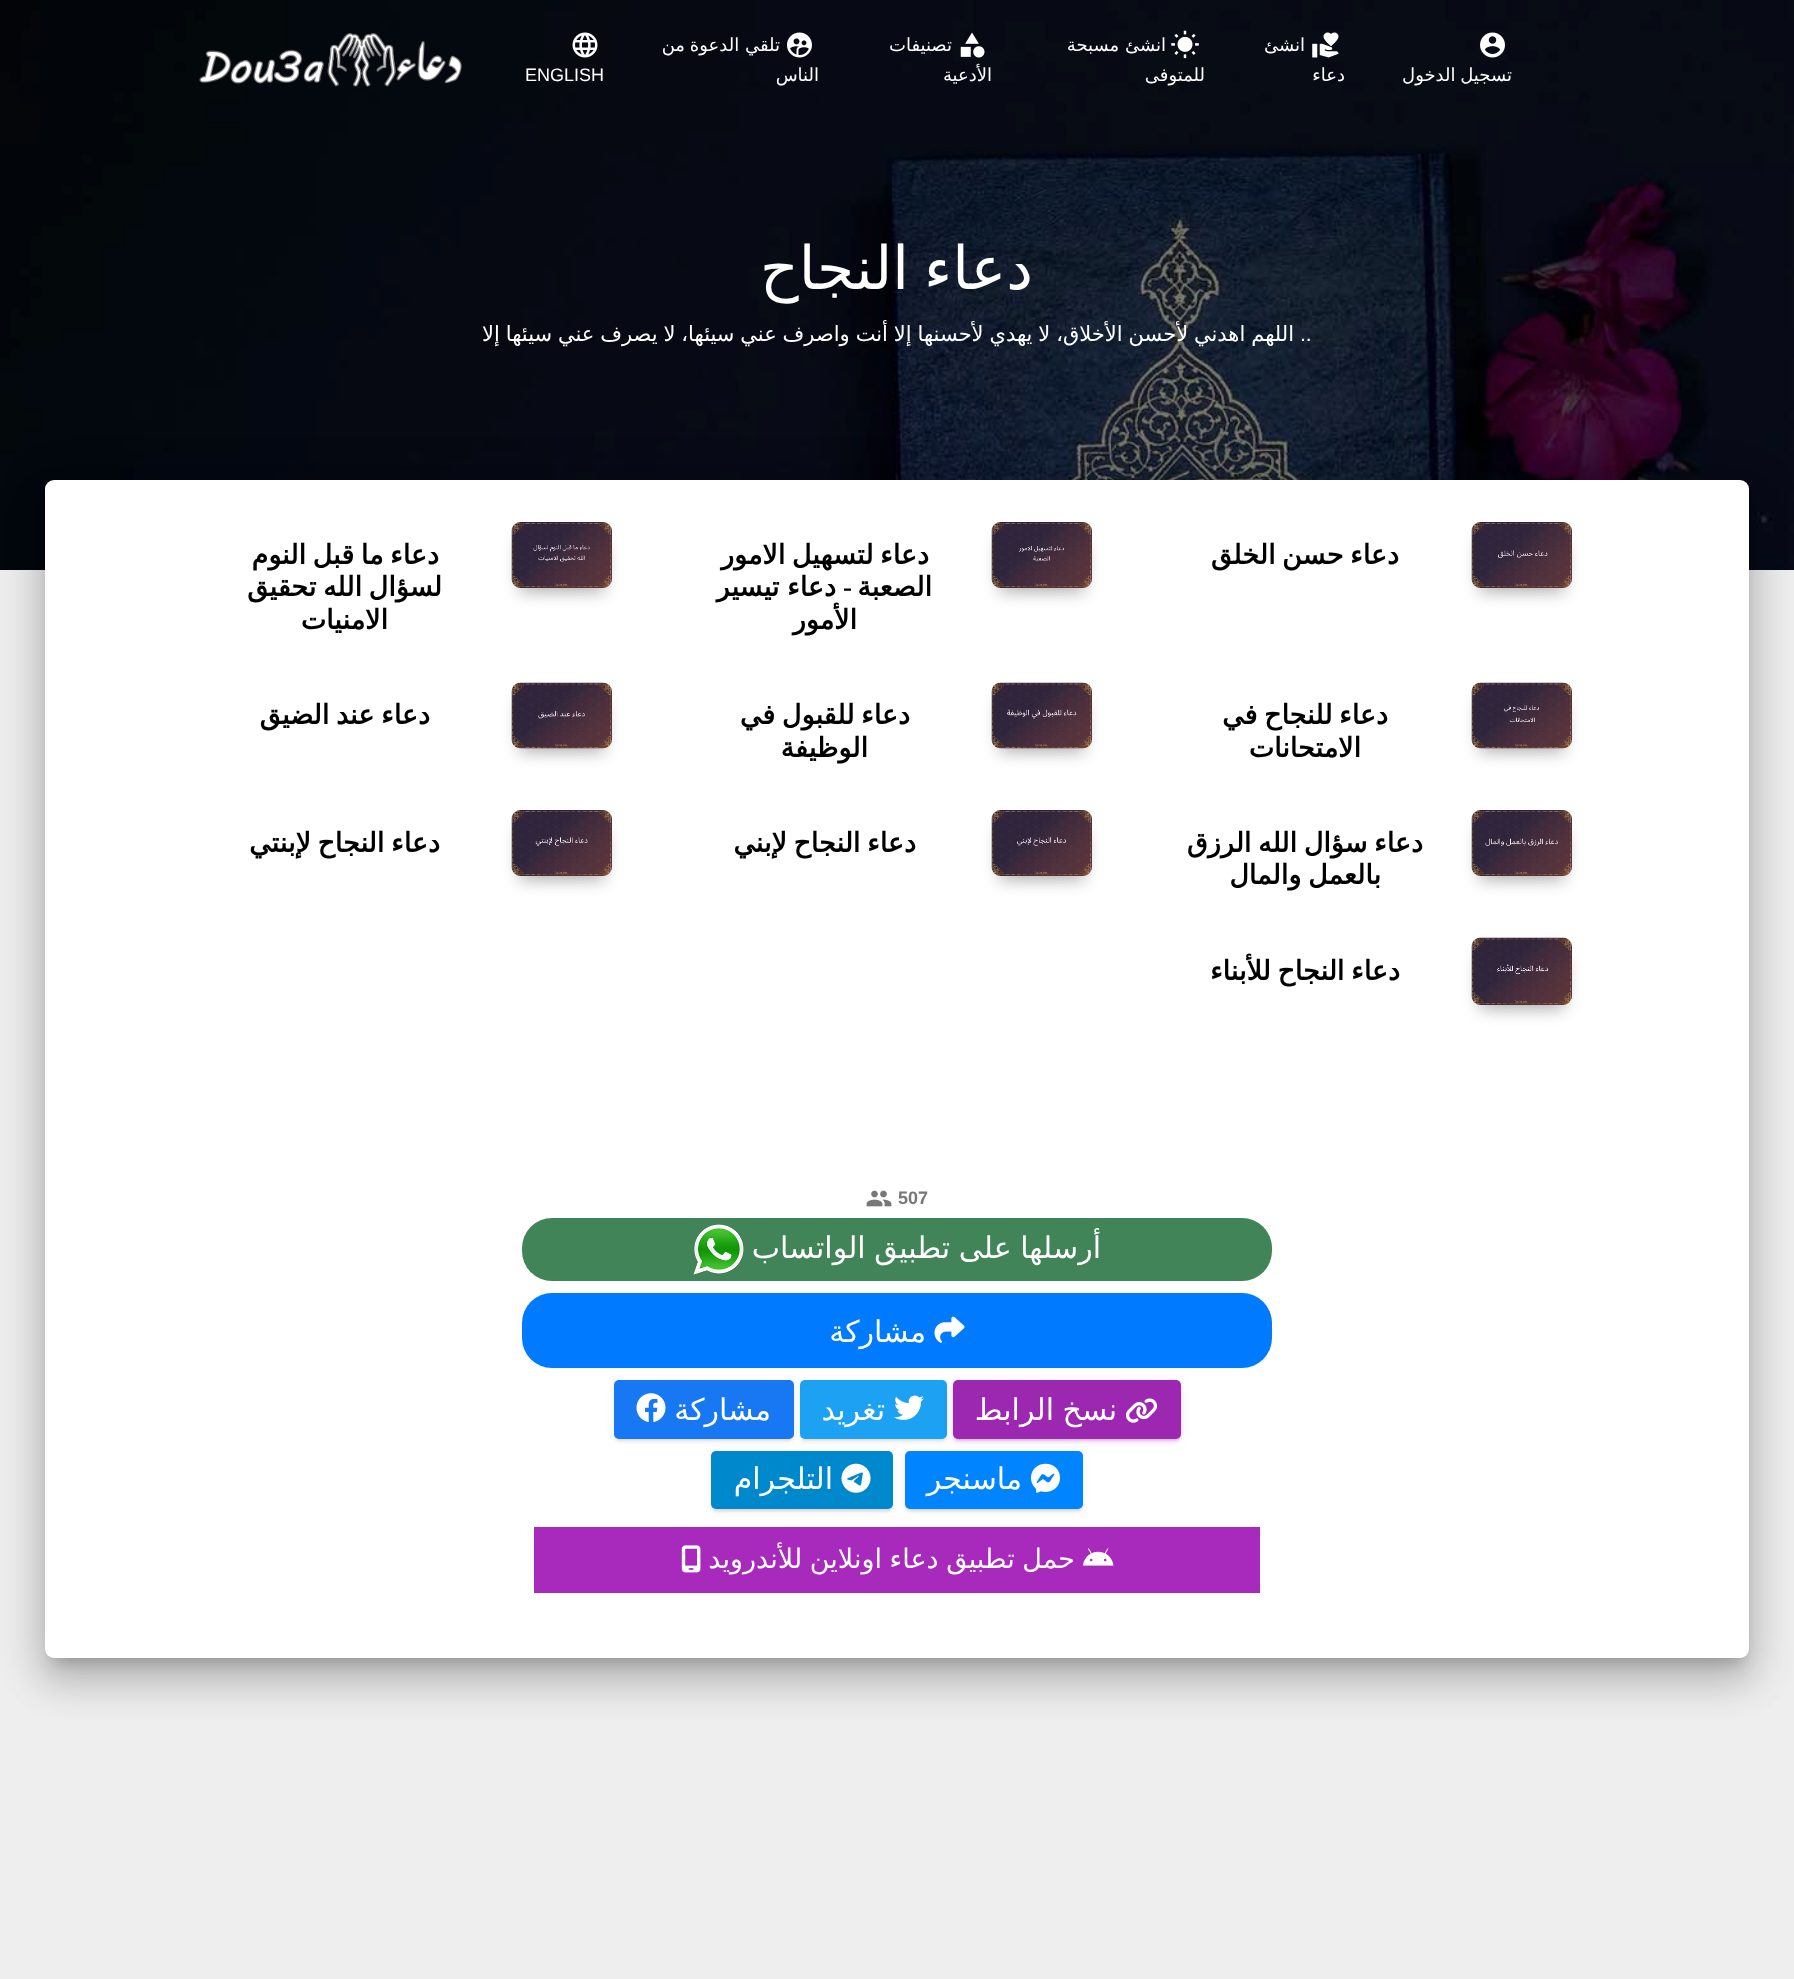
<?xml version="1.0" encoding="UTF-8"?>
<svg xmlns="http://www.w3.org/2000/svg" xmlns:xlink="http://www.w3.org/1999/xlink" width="1794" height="1979">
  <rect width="100%" height="100%" fill="#eeeeee" />
  <image x="0" y="0" width="1794" height="570" xlink:href="image8.png" />
  <image x="1480" y="32" width="25" height="26" xlink:href="image1.png" />
  <image x="1312" y="32" width="27" height="26" xlink:href="image2.png" />
  <image x="1171" y="30" width="28" height="29" xlink:href="image3.png" />
  <image x="960" y="32" width="25" height="26" xlink:href="image4.png" />
  <image x="787" y="32" width="25" height="26" xlink:href="image5.png" />
  <image x="572" y="32" width="26" height="26" xlink:href="image6.png" />
  <image x="199" y="33" width="263" height="54" xlink:href="image7.png" />
  <rect x="53" y="500" width="1689" height="1162" rx="1.5" fill="#000000" fill-opacity="0.2" filter="blur(7.5px)" />
  <rect x="38" y="482" width="1719" height="1192" rx="17" fill="#000000" fill-opacity="0.12" filter="blur(22.5px)" />
  <rect x="42" y="501" width="1710" height="1184" rx="12" fill="#000000" fill-opacity="0.14" filter="blur(18px)" />
  <rect x="45" y="480" width="1704" height="1178" rx="9" fill="#ffffff" />
  <rect x="1484" y="542" width="76" height="42" fill="#000000" fill-opacity="0.24" filter="blur(11px)" />
  <rect x="1479" y="542" width="86" height="51" rx="1.5" fill="#000000" fill-opacity="0.2" filter="blur(7.5px)" />
  <image x="1471" y="522" width="101" height="66" xlink:href="image9.png" />
  <rect x="1004" y="542" width="76" height="42" fill="#000000" fill-opacity="0.24" filter="blur(11px)" />
  <rect x="999" y="542" width="86" height="51" rx="1.5" fill="#000000" fill-opacity="0.2" filter="blur(7.5px)" />
  <image x="991" y="522" width="101" height="66" xlink:href="image10.png" />
  <rect x="524" y="542" width="76" height="42" fill="#000000" fill-opacity="0.24" filter="blur(11px)" />
  <rect x="519" y="542" width="86" height="51" rx="1.5" fill="#000000" fill-opacity="0.2" filter="blur(7.5px)" />
  <image x="511" y="522" width="101" height="66" xlink:href="image11.png" />
  <rect x="1484" y="702" width="76" height="42" fill="#000000" fill-opacity="0.24" filter="blur(11px)" />
  <rect x="1479" y="702" width="86" height="51" rx="1.5" fill="#000000" fill-opacity="0.2" filter="blur(7.5px)" />
  <image x="1471" y="682" width="101" height="67" xlink:href="image12.png" />
  <rect x="1004" y="702" width="76" height="42" fill="#000000" fill-opacity="0.24" filter="blur(11px)" />
  <rect x="999" y="702" width="86" height="51" rx="1.5" fill="#000000" fill-opacity="0.2" filter="blur(7.5px)" />
  <image x="991" y="682" width="101" height="67" xlink:href="image13.png" />
  <rect x="524" y="702" width="76" height="42" fill="#000000" fill-opacity="0.24" filter="blur(11px)" />
  <rect x="519" y="702" width="86" height="51" rx="1.5" fill="#000000" fill-opacity="0.2" filter="blur(7.5px)" />
  <image x="511" y="682" width="101" height="67" xlink:href="image14.png" />
  <rect x="1484" y="830" width="76" height="42" fill="#000000" fill-opacity="0.24" filter="blur(11px)" />
  <rect x="1479" y="830" width="86" height="51" rx="1.5" fill="#000000" fill-opacity="0.2" filter="blur(7.5px)" />
  <image x="1471" y="810" width="101" height="66" xlink:href="image15.png" />
  <rect x="1004" y="830" width="76" height="42" fill="#000000" fill-opacity="0.24" filter="blur(11px)" />
  <rect x="999" y="830" width="86" height="51" rx="1.5" fill="#000000" fill-opacity="0.2" filter="blur(7.5px)" />
  <image x="991" y="810" width="101" height="66" xlink:href="image16.png" />
  <rect x="524" y="830" width="76" height="42" fill="#000000" fill-opacity="0.24" filter="blur(11px)" />
  <rect x="519" y="830" width="86" height="51" rx="1.5" fill="#000000" fill-opacity="0.2" filter="blur(7.5px)" />
  <image x="511" y="810" width="101" height="66" xlink:href="image17.png" />
  <rect x="1484" y="957" width="76" height="44" fill="#000000" fill-opacity="0.24" filter="blur(11px)" />
  <rect x="1479" y="957" width="86" height="53" rx="1.5" fill="#000000" fill-opacity="0.2" filter="blur(7.5px)" />
  <image x="1471" y="937" width="101" height="68" xlink:href="image18.png" />
  <image x="866" y="1190" width="26" height="17" xlink:href="image19.png" />
  <rect x="522" y="1218" width="750" height="63" rx="30" fill="#408458" />
  <image x="693" y="1224" width="51" height="51" xlink:href="image20.png" />
  <rect x="522" y="1293" width="750" height="75" rx="30" fill="#007bff" />
  <image x="934" y="1316" width="31" height="27" xlink:href="image21.png" />
  <rect x="614" y="1382" width="180" height="58" rx="5" fill="#999999" fill-opacity="0.12" filter="blur(4px)" />
  <rect x="617" y="1388" width="174" height="52" rx="1.5" fill="#999999" fill-opacity="0.2" filter="blur(1px)" />
  <rect x="614" y="1383" width="180" height="59" rx="5" fill="#999999" fill-opacity="0.14" filter="blur(1.5px)" />
  <rect x="614" y="1380" width="180" height="59" rx="5" fill="#1877f2" />
  <rect x="800" y="1382" width="147" height="58" rx="5" fill="#999999" fill-opacity="0.12" filter="blur(4px)" />
  <rect x="803" y="1388" width="141" height="52" rx="1.5" fill="#999999" fill-opacity="0.2" filter="blur(1px)" />
  <rect x="800" y="1383" width="147" height="59" rx="5" fill="#999999" fill-opacity="0.14" filter="blur(1.5px)" />
  <rect x="800" y="1380" width="147" height="59" rx="5" fill="#1da1f2" />
  <rect x="953" y="1382" width="228" height="58" rx="5" fill="#9c27b0" fill-opacity="0.12" filter="blur(4px)" />
  <rect x="956" y="1388" width="222" height="52" rx="1.5" fill="#9c27b0" fill-opacity="0.2" filter="blur(1px)" />
  <rect x="953" y="1383" width="228" height="59" rx="5" fill="#9c27b0" fill-opacity="0.14" filter="blur(1.5px)" />
  <rect x="953" y="1380" width="228" height="59" rx="5" fill="#9c27b0" />
  <image x="1125" y="1398" width="33" height="25" xlink:href="image22.png" />
  <image x="894" y="1395" width="30" height="25" xlink:href="image23.png" />
  <image x="636" y="1393" width="30" height="29" xlink:href="image24.png" />
  <rect x="711" y="1452" width="182" height="59" rx="5" fill="#999999" fill-opacity="0.12" filter="blur(4px)" />
  <rect x="714" y="1458" width="176" height="53" rx="1.5" fill="#999999" fill-opacity="0.2" filter="blur(1px)" />
  <rect x="711" y="1454" width="182" height="58" rx="5" fill="#999999" fill-opacity="0.14" filter="blur(1.5px)" />
  <rect x="711" y="1451" width="182" height="58" rx="5" fill="#0088cc" />
  <rect x="905" y="1452" width="178" height="59" rx="5" fill="#999999" fill-opacity="0.12" filter="blur(4px)" />
  <rect x="908" y="1458" width="172" height="53" rx="1.5" fill="#999999" fill-opacity="0.2" filter="blur(1px)" />
  <rect x="905" y="1454" width="178" height="58" rx="5" fill="#999999" fill-opacity="0.14" filter="blur(1.5px)" />
  <rect x="905" y="1451" width="178" height="58" rx="5" fill="#0084ff" />
  <image x="1031" y="1463" width="29" height="30" xlink:href="image25.png" />
  <image x="841" y="1463" width="30" height="30" xlink:href="image26.png" />
  <rect x="534" y="1527" width="726" height="66" fill="#a72abd" />
  <image x="1083" y="1548" width="31" height="18" xlink:href="image27.png" />
  <image x="681" y="1545" width="20" height="28" xlink:href="image28.png" />
  <text x="1512" y="81" word-spacing="-1" style="font-family: DejaVu Sans; font-size: 18px; direction: rtl; fill: #ffffff">تسجيل الدخول</text>
  <text x="1305" y="51" style="font-family: DejaVu Sans; font-size: 18px; direction: rtl; fill: #ffffff">انشئ</text>
  <text x="1345" y="81" style="font-family: DejaVu Sans; font-size: 18px; direction: rtl; fill: #ffffff">دعاء</text>
  <text x="1166" y="51" style="font-family: DejaVu Sans; font-size: 18px; direction: rtl; fill: #ffffff">انشئ مسبحة</text>
  <text x="1205" y="81" style="font-family: DejaVu Sans; font-size: 18px; direction: rtl; fill: #ffffff">للمتوفى</text>
  <text x="952" y="51" style="font-family: DejaVu Sans; font-size: 18px; direction: rtl; fill: #ffffff">تصنيفات</text>
  <text x="992" y="81" style="font-family: DejaVu Sans; font-size: 18px; direction: rtl; fill: #ffffff">الأدعية</text>
  <text x="780" y="51" style="font-family: DejaVu Sans; font-size: 18px; direction: rtl; fill: #ffffff">تلقي الدعوة</text>
  <text x="685" y="51" style="font-family: DejaVu Sans; font-size: 18px; direction: rtl; fill: #ffffff">من</text>
  <text x="819" y="81" style="font-family: DejaVu Sans; font-size: 18px; direction: rtl; fill: #ffffff">الناس</text>
  <text x="525" y="81" style="font-family: Liberation Sans; font-size: 18px; fill: #ffffff">ENGLISH</text>
  <text x="1033" y="289" word-spacing="-4" style="font-family: DejaVu Sans; font-size: 60px; direction: rtl; fill: #ffffff">دعاء النجاح</text>
  <text x="1294" y="341" word-spacing="-0.8" style="font-family: DejaVu Sans; font-size: 21px; direction: rtl; fill: #ffffff">اللهم اهدني لأحسن الأخلاق، لا يهدي لأحسنها إلا أنت واصرف عني سيئها، لا يصرف عني سيئها إلا</text>
  <text x="1300" y="341" style="font-family: Liberation Sans; font-size: 21px; fill: #ffffff">..</text>
  <text x="1399" y="564" word-spacing="-2" style="font-family: DejaVu Sans; font-size: 27px; font-weight: bold; direction: rtl; fill: #000000">دعاء حسن الخلق</text>
  <text x="929" y="564" word-spacing="-2" style="font-family: DejaVu Sans; font-size: 27px; font-weight: bold; direction: rtl; fill: #000000">دعاء لتسهيل الامور</text>
  <text x="932" y="596" style="font-family: DejaVu Sans; font-size: 27px; font-weight: bold; direction: rtl; fill: #000000">الصعبة</text>
  <text x="852" y="596" style="font-family: Liberation Serif; font-size: 27px; font-weight: bold; direction: rtl; fill: #000000">-</text>
  <text x="836" y="596" word-spacing="-1" style="font-family: DejaVu Sans; font-size: 27px; font-weight: bold; direction: rtl; fill: #000000">دعاء تيسير</text>
  <text x="857" y="629" style="font-family: DejaVu Sans; font-size: 27px; font-weight: bold; direction: rtl; fill: #000000">الأمور</text>
  <text x="439" y="564" word-spacing="-2" style="font-family: DejaVu Sans; font-size: 27px; font-weight: bold; direction: rtl; fill: #000000">دعاء ما قبل النوم</text>
  <text x="442" y="596" word-spacing="-2" style="font-family: DejaVu Sans; font-size: 27px; font-weight: bold; direction: rtl; fill: #000000">لسؤال الله تحقيق</text>
  <text x="388" y="629" style="font-family: DejaVu Sans; font-size: 27px; font-weight: bold; direction: rtl; fill: #000000">الامنيات</text>
  <text x="1388" y="724" word-spacing="-2" style="font-family: DejaVu Sans; font-size: 27px; font-weight: bold; direction: rtl; fill: #000000">دعاء للنجاح في</text>
  <text x="1361" y="757" style="font-family: DejaVu Sans; font-size: 27px; font-weight: bold; direction: rtl; fill: #000000">الامتحانات</text>
  <text x="910" y="724" word-spacing="-2" style="font-family: DejaVu Sans; font-size: 27px; font-weight: bold; direction: rtl; fill: #000000">دعاء للقبول في</text>
  <text x="868" y="757" style="font-family: DejaVu Sans; font-size: 27px; font-weight: bold; direction: rtl; fill: #000000">الوظيفة</text>
  <text x="430" y="724" word-spacing="-2" style="font-family: DejaVu Sans; font-size: 27px; font-weight: bold; direction: rtl; fill: #000000">دعاء عند الضيق</text>
  <text x="1423" y="852" word-spacing="-2" style="font-family: DejaVu Sans; font-size: 27px; font-weight: bold; direction: rtl; fill: #000000">دعاء سؤال الله الرزق</text>
  <text x="1381" y="884" word-spacing="-2" style="font-family: DejaVu Sans; font-size: 27px; font-weight: bold; direction: rtl; fill: #000000">بالعمل والمال</text>
  <text x="916" y="852" word-spacing="-2" style="font-family: DejaVu Sans; font-size: 27px; font-weight: bold; direction: rtl; fill: #000000">دعاء النجاح لإبني</text>
  <text x="440" y="852" word-spacing="-2" style="font-family: DejaVu Sans; font-size: 27px; font-weight: bold; direction: rtl; fill: #000000">دعاء النجاح لإبنتي</text>
  <text x="1400" y="980" word-spacing="-2" style="font-family: DejaVu Sans; font-size: 27px; font-weight: bold; direction: rtl; fill: #000000">دعاء النجاح للأبناء</text>
  <text x="898" y="1204" style="font-family: Liberation Sans; font-size: 18px; font-weight: bold; fill: #777777">507</text>
  <text x="1101" y="1258" word-spacing="-1" style="font-family: DejaVu Sans; font-size: 30px; direction: rtl; fill: #ffffff">أرسلها على تطبيق الواتساب</text>
  <text x="926" y="1342" style="font-family: DejaVu Sans; font-size: 30px; direction: rtl; fill: #ffffff">مشاركة</text>
  <text x="1117" y="1420" word-spacing="-1" style="font-family: DejaVu Sans; font-size: 30px; direction: rtl; fill: #ffffff">نسخ الرابط</text>
  <text x="885" y="1420" style="font-family: DejaVu Sans; font-size: 30px; direction: rtl; fill: #ffffff">تغريد</text>
  <text x="771" y="1420" style="font-family: DejaVu Sans; font-size: 30px; direction: rtl; fill: #ffffff">مشاركة</text>
  <text x="1022" y="1489" style="font-family: DejaVu Sans; font-size: 30px; direction: rtl; fill: #ffffff">ماسنجر</text>
  <text x="833" y="1489" style="font-family: DejaVu Sans; font-size: 30px; direction: rtl; fill: #ffffff">التلجرام</text>
  <text x="1075" y="1568" word-spacing="-1" style="font-family: DejaVu Sans; font-size: 27px; direction: rtl; fill: #ffffff">حمل تطبيق دعاء اونلاين للأندرويد</text>
</svg>
